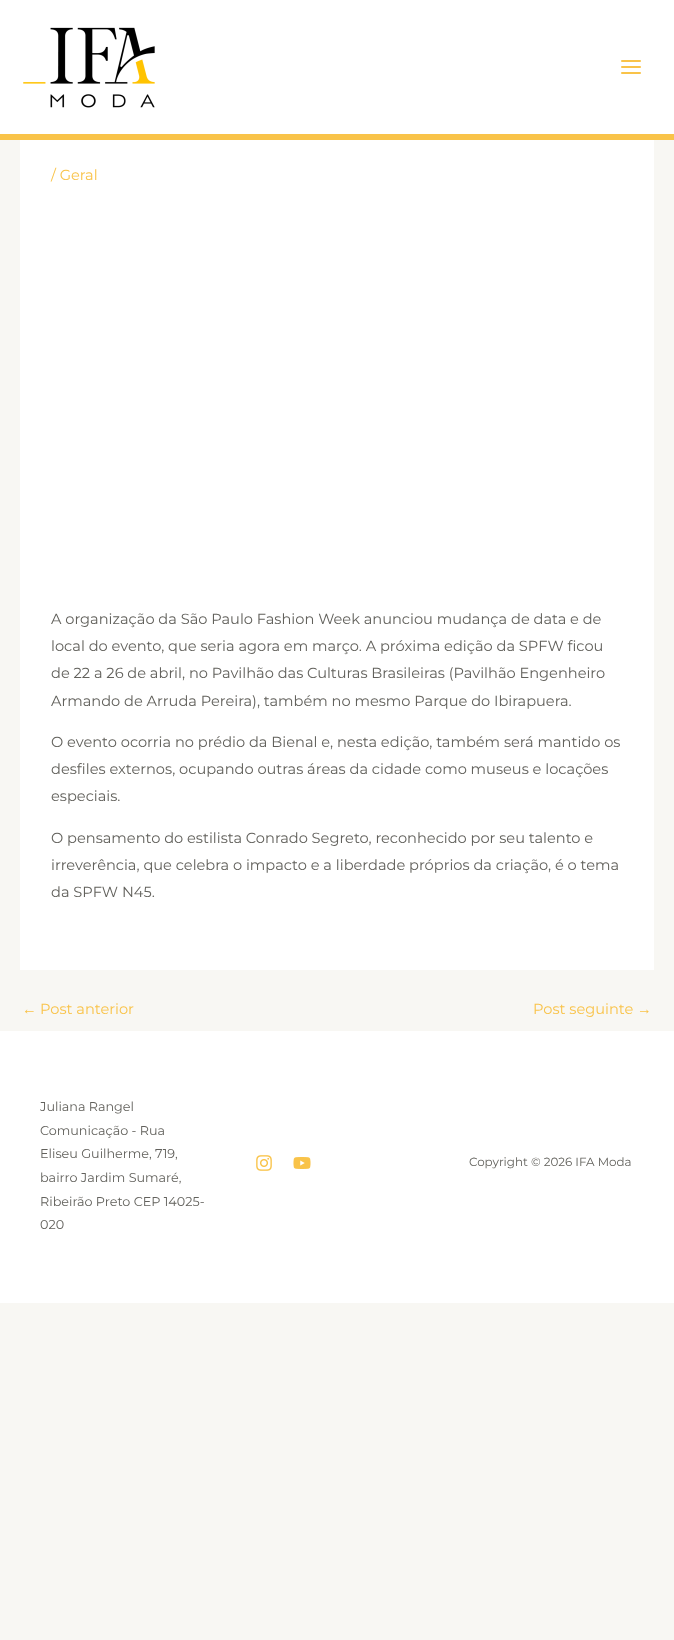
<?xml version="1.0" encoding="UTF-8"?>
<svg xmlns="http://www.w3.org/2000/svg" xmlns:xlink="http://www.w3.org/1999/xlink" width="674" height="1640">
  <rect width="100%" height="100%" fill="#f8f7f3" />
  <rect width="674" height="134" fill="#ffffff" />
  <rect y="134" width="674" height="6" fill="#f9c349" />
  <image x="23" y="27" width="132" height="81" xlink:href="image1.png" />
  <image x="621" y="60" width="20" height="14" xlink:href="image2.png" />
  <rect x="20" y="140" width="634" height="830" fill="#ffffff" />
  <rect y="1031" width="674" height="272" fill="#ffffff" />
  <image x="256" y="1155" width="16" height="16" xlink:href="image3.png" />
  <image x="293" y="1157" width="18" height="12" xlink:href="image4.png" />
  <text x="51" y="180" style="font-family: Montserrat; font-size: 14.6px; fill: #f9c349">/ Geral</text>
  <text x="51" y="624" style="font-family: Montserrat; font-size: 14.6px; fill: #62615c">A organização da São Paulo Fashion Week anunciou mudança de data e de</text>
  <text x="51" y="651" style="font-family: Montserrat; font-size: 14.6px; fill: #62615c">local do evento, que seria agora em março. A próxima edição da SPFW ficou</text>
  <text x="51" y="678" style="font-family: Montserrat; font-size: 14.6px; fill: #62615c">de 22 a 26 de abril, no Pavilhão das Culturas Brasileiras (Pavilhão Engenheiro</text>
  <text x="51" y="706" style="font-family: Montserrat; font-size: 14.6px; fill: #62615c">Armando de Arruda Pereira), também no mesmo Parque do Ibirapuera.</text>
  <text x="51" y="747" style="font-family: Montserrat; font-size: 14.6px; fill: #62615c">O evento ocorria no prédio da Bienal e, nesta edição, também será mantido os</text>
  <text x="51" y="774" style="font-family: Montserrat; font-size: 14.6px; fill: #62615c">desfiles externos, ocupando outras áreas da cidade como museus e locações</text>
  <text x="51" y="801" style="font-family: Montserrat; font-size: 14.6px; fill: #62615c">especiais.</text>
  <text x="51" y="843" style="font-family: Montserrat; font-size: 14.6px; fill: #62615c">O pensamento do estilista Conrado Segreto, reconhecido por seu talento e</text>
  <text x="51" y="870" style="font-family: Montserrat; font-size: 14.6px; fill: #62615c">irreverência, que celebra o impacto e a liberdade próprios da criação, é o tema</text>
  <text x="51" y="897" style="font-family: Montserrat; font-size: 14.6px; fill: #62615c">da SPFW N45.</text>
  <text x="22" y="1014" style="font-family: Liberation Sans; font-size: 14.6px; fill: #f9c349">←</text>
  <text x="40" y="1014" style="font-family: Montserrat; font-size: 14.6px; fill: #f9c349">Post anterior</text>
  <text x="533" y="1014" style="font-family: Montserrat; font-size: 14.6px; fill: #f9c349">Post seguinte</text>
  <text x="637" y="1014" style="font-family: Liberation Sans; font-size: 14.6px; fill: #f9c349">→</text>
  <text x="40" y="1111" style="font-family: Montserrat; font-size: 12.75px; fill: #62615c">Juliana Rangel</text>
  <text x="40" y="1135" style="font-family: Montserrat; font-size: 12.75px; fill: #62615c">Comunicação - Rua</text>
  <text x="40" y="1158" style="font-family: Montserrat; font-size: 12.75px; fill: #62615c">Eliseu Guilherme, 719,</text>
  <text x="40" y="1182" style="font-family: Montserrat; font-size: 12.75px; fill: #62615c">bairro Jardim Sumaré,</text>
  <text x="40" y="1206" style="font-family: Montserrat; font-size: 12.75px; fill: #62615c">Ribeirão Preto CEP 14025-</text>
  <text x="40" y="1229" style="font-family: Montserrat; font-size: 12.75px; fill: #62615c">020</text>
  <text x="469" y="1166" style="font-family: Montserrat; font-size: 11.9px; fill: #62615c">Copyright © 2026 IFA Moda</text>
</svg>
